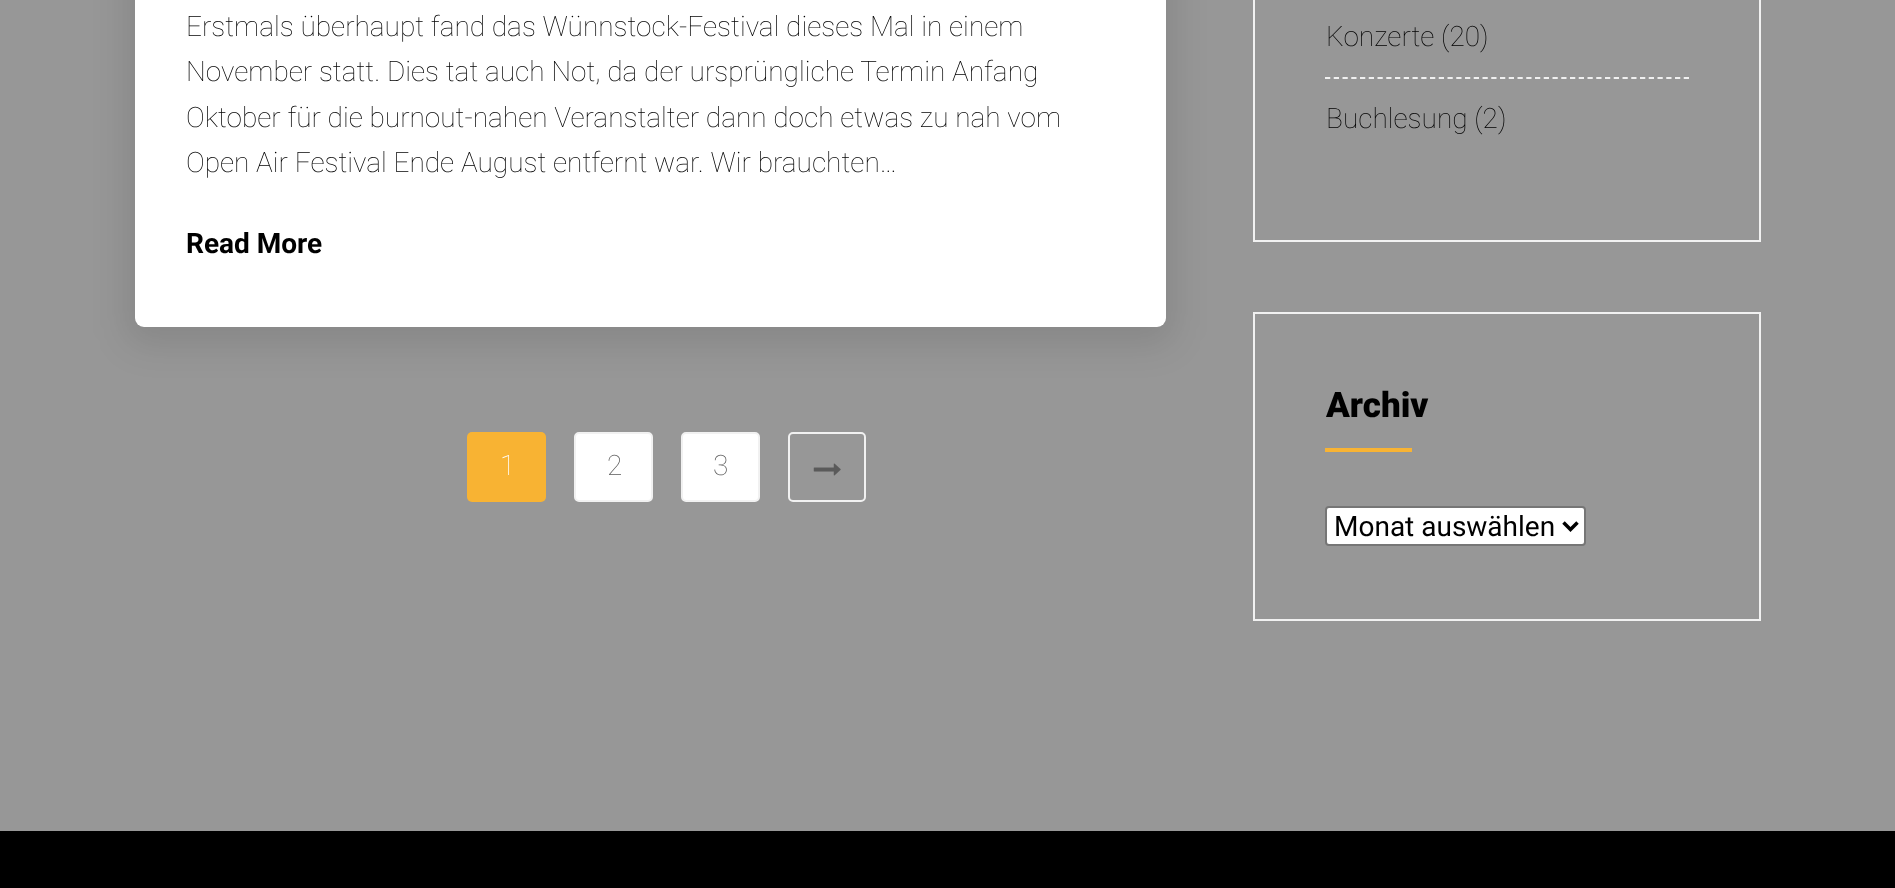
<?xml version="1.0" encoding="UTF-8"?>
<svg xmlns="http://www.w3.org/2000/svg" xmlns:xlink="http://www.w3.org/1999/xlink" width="1895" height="888">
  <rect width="100%" height="100%" fill="#979797" />
  <rect x="126" y="-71" width="1048" height="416" rx="18" fill="#000000" fill-opacity="0.1" filter="blur(17.5px)" />
  <rect x="135" y="-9" width="1031" height="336" rx="9" fill="#ffffff" />
  <rect x="467" y="432" width="79" height="70" rx="5" fill="#f8b333" />
  <rect x="575" y="433" width="77" height="68" rx="4" fill="#ffffff" stroke="#f1f1f1" stroke-width="2" />
  <rect x="682" y="433" width="77" height="68" rx="4" fill="#ffffff" stroke="#f1f1f1" stroke-width="2" />
  <rect x="789" y="433" width="76" height="68" rx="4" fill="none" stroke="#f1f1f1" stroke-width="2" />
  <image x="813" y="463" width="28" height="13" xlink:href="image1.png" />
  <rect x="1254" y="-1" width="506" height="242" fill="none" stroke="#f1f1f1" stroke-width="2" />
  <path d="M 1325 78 h 364" fill="none" stroke="#f1f1f1" stroke-width="1.8" stroke-dasharray="5.25 3.5" />
  <rect x="1254" y="313" width="506" height="307" fill="none" stroke="#f1f1f1" stroke-width="2" />
  <rect x="1325" y="448" width="87" height="4" fill="#f8b333" />
  <rect x="1326" y="507" width="259" height="38" rx="3" fill="#ffffff" stroke="#767676" stroke-width="2" />
  <path d="M 1563.5 522.5 l 7 7 l 7 -7" fill="none" stroke="#000000" stroke-width="3.5" />
  <rect y="831" width="1895" height="57" fill="#000000" />
  <text x="186" y="36" style="font-family: Roboto; font-size: 28px; font-weight: 100; fill: #000000">Erstmals überhaupt fand das Wünnstock-Festival dieses Mal in einem</text>
  <text x="186" y="81" style="font-family: Roboto; font-size: 28px; font-weight: 100; fill: #000000">November statt. Dies tat auch Not, da der ursprüngliche Termin Anfang</text>
  <text x="186" y="127" style="font-family: Roboto; font-size: 28px; font-weight: 100; fill: #000000">Oktober für die burnout-nahen Veranstalter dann doch etwas zu nah vom</text>
  <text x="186" y="172" style="font-family: Roboto; font-size: 28px; font-weight: 100; fill: #000000">Open Air Festival Ende August entfernt war. Wir brauchten…</text>
  <text x="186" y="253" style="font-family: Roboto; font-size: 28px; font-weight: bold; fill: #000000">Read More</text>
  <text x="500" y="475" style="font-family: Roboto; font-size: 28px; font-weight: 100; fill: #ffffff">1</text>
  <text x="607" y="475" style="font-family: Roboto; font-size: 28px; font-weight: 100; fill: #5a5a5a">2</text>
  <text x="713" y="475" style="font-family: Roboto; font-size: 28px; font-weight: 100; fill: #5a5a5a">3</text>
  <text x="1326" y="46" style="font-family: Roboto; font-size: 28px; font-weight: 100; fill: #000000">Konzerte (20)</text>
  <text x="1326" y="128" style="font-family: Roboto; font-size: 28px; font-weight: 100; fill: #000000">Buchlesung (2)</text>
  <text x="1326" y="417" style="font-family: Roboto; font-size: 35px; font-weight: 900; fill: #000000">Archiv</text>
  <text x="1334" y="536" style="font-family: Roboto; font-size: 28px; fill: #000000">Monat auswählen</text>
</svg>
